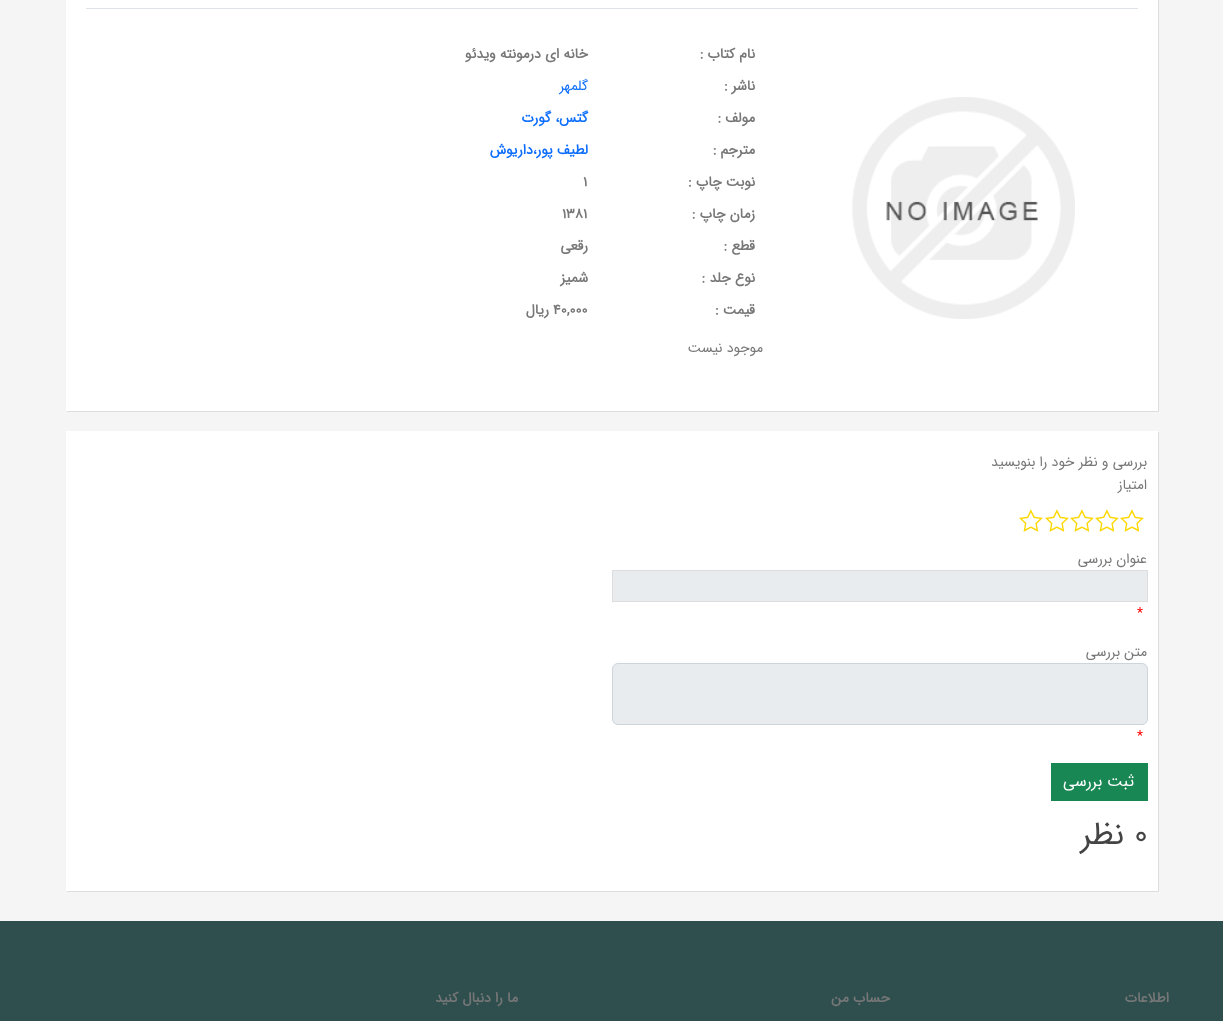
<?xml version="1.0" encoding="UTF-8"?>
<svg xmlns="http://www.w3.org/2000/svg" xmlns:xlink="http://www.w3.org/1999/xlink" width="1223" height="1021">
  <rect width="100%" height="100%" fill="#f5f5f5" />
  <rect x="67" y="-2" width="1092" height="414" fill="#dddddd" filter="blur(0.5px)" />
  <rect x="66" width="1092" height="411" fill="#ffffff" />
  <rect x="86" y="8" width="1052" height="1" fill="#dee2e6" />
  <image x="852" y="97" width="223" height="222" xlink:href="image1.png" />
  <rect x="67" y="432" width="1092" height="460" fill="#dddddd" filter="blur(0.5px)" />
  <rect x="66" y="431" width="1092" height="460" fill="#ffffff" />
  <image x="1120" y="509" width="24" height="23" xlink:href="image2.png" />
  <image x="1095" y="509" width="24" height="23" xlink:href="image2.png" />
  <image x="1070" y="509" width="24" height="23" xlink:href="image2.png" />
  <image x="1045" y="509" width="24" height="23" xlink:href="image2.png" />
  <image x="1019" y="509" width="24" height="23" xlink:href="image2.png" />
  <rect x="612.5" y="570.5" width="535" height="31" fill="#e9ecef" stroke="#dddddd" />
  <rect x="612.5" y="663.5" width="535" height="61" rx="5.5" fill="#e9ecef" stroke="#ced4da" />
  <rect x="1051" y="763" width="97" height="38" fill="#198754" />
  <rect y="921" width="1223" height="100" fill="#2f4f4f" />
  <text x="755" y="58" style="font-family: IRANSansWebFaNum; font-size: 14px; font-weight: bold; direction: rtl; fill: #777777">نام کتاب :</text>
  <text x="588" y="58" style="font-family: IRANSansWebFaNum; font-size: 14px; font-weight: bold; direction: rtl; fill: #777777">خانه ای درمونته ویدئو</text>
  <text x="755" y="90" style="font-family: IRANSansWebFaNum; font-size: 14px; font-weight: bold; direction: rtl; fill: #777777">ناشر :</text>
  <text x="588" y="90" style="font-family: IRANSansWebFaNum; font-size: 14px; direction: rtl; fill: #0d6efd">گلمهر</text>
  <text x="755" y="122" style="font-family: IRANSansWebFaNum; font-size: 14px; font-weight: bold; direction: rtl; fill: #777777">مولف :</text>
  <text x="588" y="122" style="font-family: IRANSansWebFaNum; font-size: 14px; font-weight: bold; direction: rtl; fill: #0d6efd">گتس، گورت</text>
  <text x="755" y="154" style="font-family: IRANSansWebFaNum; font-size: 14px; font-weight: bold; direction: rtl; fill: #777777">مترجم :</text>
  <text x="588" y="154" style="font-family: IRANSansWebFaNum; font-size: 14px; font-weight: bold; direction: rtl; fill: #0d6efd">لطیف پور،‌داریوش</text>
  <text x="755" y="186" style="font-family: IRANSansWebFaNum; font-size: 14px; font-weight: bold; direction: rtl; fill: #777777">نوبت چاپ :</text>
  <text x="583" y="186" style="font-family: IRANSansWebFaNum; font-size: 14px; font-weight: bold; fill: #777777">1</text>
  <text x="755" y="218" style="font-family: IRANSansWebFaNum; font-size: 14px; font-weight: bold; direction: rtl; fill: #777777">زمان چاپ :</text>
  <text x="562" y="218" style="font-family: IRANSansWebFaNum; font-size: 14px; font-weight: bold; fill: #777777">1381</text>
  <text x="755" y="250" style="font-family: IRANSansWebFaNum; font-size: 14px; font-weight: bold; direction: rtl; fill: #777777">قطع :</text>
  <text x="588" y="250" style="font-family: IRANSansWebFaNum; font-size: 14px; font-weight: bold; direction: rtl; fill: #777777">رقعی</text>
  <text x="755" y="282" style="font-family: IRANSansWebFaNum; font-size: 14px; font-weight: bold; direction: rtl; fill: #777777">نوع جلد :</text>
  <text x="588" y="282" style="font-family: IRANSansWebFaNum; font-size: 14px; font-weight: bold; direction: rtl; fill: #777777">شمیز</text>
  <text x="755" y="314" style="font-family: IRANSansWebFaNum; font-size: 14px; font-weight: bold; direction: rtl; fill: #777777">قيمت :</text>
  <text x="553" y="314" style="font-family: IRANSansWebFaNum; font-size: 14px; font-weight: bold; fill: #777777">40,000</text>
  <text x="549" y="314" style="font-family: IRANSansWebFaNum; font-size: 14px; font-weight: bold; direction: rtl; fill: #777777">ریال</text>
  <text x="763" y="352" style="font-family: IRANSansWebFaNum; font-size: 14px; direction: rtl; fill: #777777">موجود نیست</text>
  <text x="1147" y="466" style="font-family: IRANSansWebFaNum; font-size: 14px; direction: rtl; fill: #777777">بررسی و نظر خود را بنویسید</text>
  <text x="1147" y="489" style="font-family: IRANSansWebFaNum; font-size: 14px; direction: rtl; fill: #777777">امتیاز</text>
  <text x="1147" y="563" style="font-family: IRANSansWebFaNum; font-size: 14px; direction: rtl; fill: #777777">عنوان بررسی</text>
  <text x="1137" y="617" style="font-family: IRANSansWebFaNum; font-size: 14px; fill: #ff0000">*</text>
  <text x="1147" y="656" style="font-family: IRANSansWebFaNum; font-size: 14px; direction: rtl; fill: #777777">متن بررسی</text>
  <text x="1137" y="740" style="font-family: IRANSansWebFaNum; font-size: 14px; fill: #ff0000">*</text>
  <text x="1134" y="786" style="font-family: IRANSansWebFaNum; font-size: 16px; direction: rtl; fill: #ffffff">ثبت بررسی</text>
  <text x="1134" y="844" style="font-family: IRANSansWebFaNum; font-size: 32px; fill: #444444">0</text>
  <text x="1124" y="844" style="font-family: IRANSansWebFaNum; font-size: 32px; direction: rtl; fill: #444444">نظر</text>
  <text x="1169" y="1002" style="font-family: IRANSansWebFaNum; font-size: 14px; font-weight: bold; direction: rtl; fill: #777777">اطلاعات</text>
  <text x="890" y="1002" style="font-family: IRANSansWebFaNum; font-size: 14px; font-weight: bold; direction: rtl; fill: #777777">حساب من</text>
  <text x="518" y="1002" style="font-family: IRANSansWebFaNum; font-size: 14px; font-weight: bold; direction: rtl; fill: #777777">ما را دنبال کنيد</text>
</svg>
